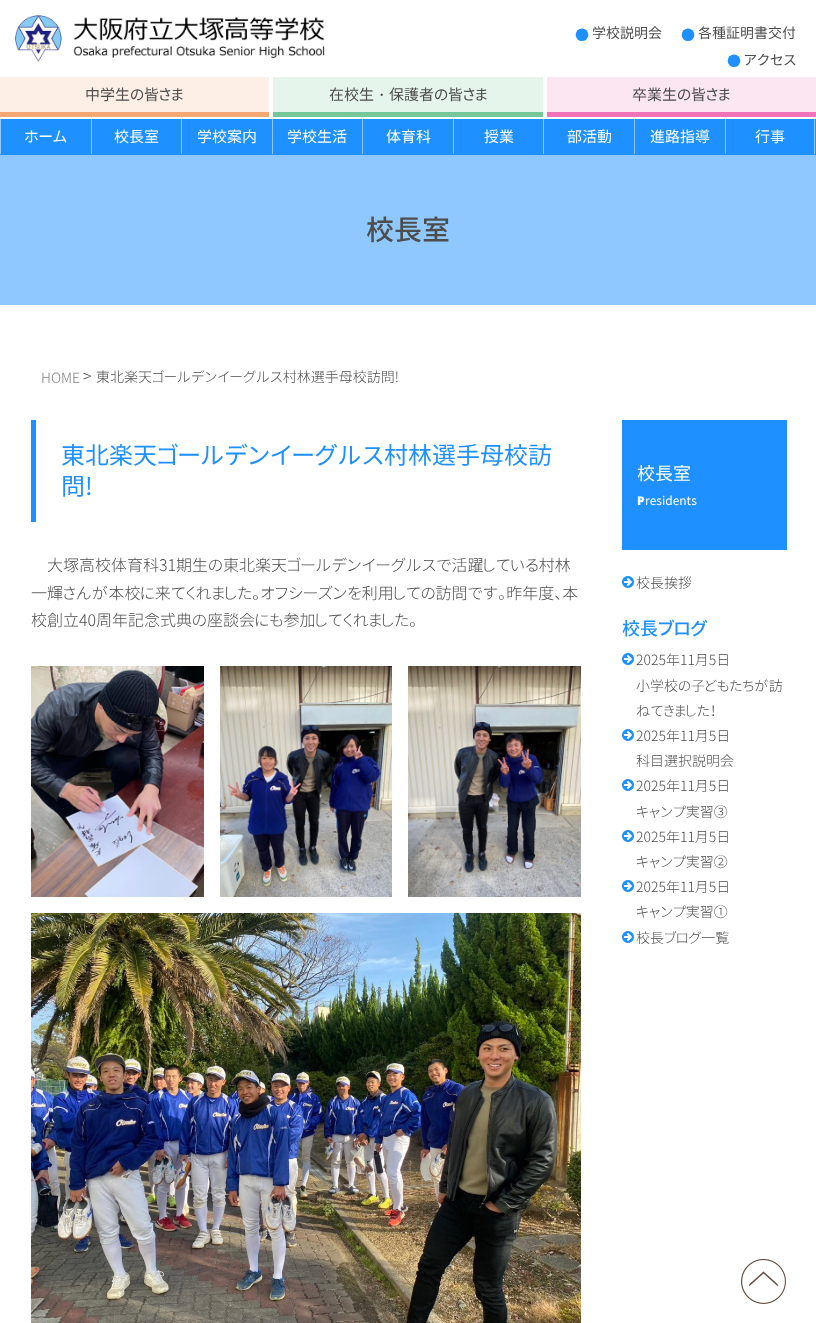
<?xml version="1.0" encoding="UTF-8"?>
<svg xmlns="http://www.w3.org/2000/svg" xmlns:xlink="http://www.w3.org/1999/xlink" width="816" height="1323">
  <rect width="100%" height="100%" fill="#ffffff" />
  <image x="15" y="15" width="310" height="47" xlink:href="image1.png" />
  <rect y="119" width="816" height="36" fill="#1e90ff" />
  <rect y="77" width="269" height="35" fill="#fdefe6" />
  <rect y="112" width="269" height="5" fill="#f5a873" />
  <rect x="273" y="77" width="270" height="35" fill="#e6f5ec" />
  <rect x="273" y="112" width="270" height="5" fill="#73c798" />
  <rect x="547" y="77" width="269" height="35" fill="#fce6f2" />
  <rect x="547" y="112" width="269" height="5" fill="#f073b9" />
  <rect y="119" width="1" height="35" fill="#8fc8ff" />
  <rect x="91" y="119" width="1" height="35" fill="#8fc8ff" />
  <rect x="181" y="119" width="1" height="35" fill="#8fc8ff" />
  <rect x="272" y="119" width="1" height="35" fill="#8fc8ff" />
  <rect x="362" y="119" width="1" height="35" fill="#8fc8ff" />
  <rect x="453" y="119" width="1" height="35" fill="#8fc8ff" />
  <rect x="543" y="119" width="1" height="35" fill="#8fc8ff" />
  <rect x="634" y="119" width="1" height="35" fill="#8fc8ff" />
  <rect x="814" y="119" width="1" height="35" fill="#8fc8ff" />
  <rect x="725" y="119" width="1" height="35" fill="#8fc8ff" />
  <rect y="155" width="816" height="150" fill="#8fc8ff" />
  <rect x="31" y="420" width="5" height="102" fill="#1e90ff" />
  <image x="31" y="666" width="173" height="231" xlink:href="image2.png" />
  <image x="220" y="666" width="172" height="231" xlink:href="image3.png" />
  <image x="408" y="666" width="173" height="231" xlink:href="image4.png" />
  <image x="31" y="913" width="550" height="410" xlink:href="image5.png" />
  <rect x="622" y="420" width="165" height="130" fill="#1e90ff" />
  <image x="622" y="576" width="12" height="12" xlink:href="image6.png" />
  <image x="622" y="653" width="12" height="12" xlink:href="image6.png" />
  <image x="622" y="729" width="12" height="12" xlink:href="image6.png" />
  <image x="622" y="779" width="12" height="12" xlink:href="image6.png" />
  <image x="622" y="830" width="12" height="12" xlink:href="image6.png" />
  <image x="622" y="880" width="12" height="12" xlink:href="image6.png" />
  <image x="622" y="931" width="12" height="12" xlink:href="image6.png" />
  <image x="741" y="1259" width="45" height="45" xlink:href="image7.png" />
  <text x="575" y="40" style="font-family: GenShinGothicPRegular; font-size: 14px; fill: #1e90ff">●</text>
  <text x="592" y="38" style="font-family: GenShinGothicPRegular; font-size: 14px; fill: #4d4d4d">学校説明会</text>
  <text x="681" y="40" style="font-family: GenShinGothicPRegular; font-size: 14px; fill: #1e90ff">●</text>
  <text x="698" y="38" style="font-family: GenShinGothicPRegular; font-size: 14px; fill: #4d4d4d">各種証明書交付</text>
  <text x="727" y="66" style="font-family: GenShinGothicPRegular; font-size: 14px; fill: #1e90ff">●</text>
  <text x="744" y="65" style="font-family: GenShinGothicPRegular; font-size: 14px; fill: #4d4d4d">アクセス</text>
  <text x="85" y="100" style="font-family: GenShinGothicPRegular; font-size: 15px; fill: #4d4d4d">中学生の皆さま</text>
  <text x="329" y="100" style="font-family: GenShinGothicPRegular; font-size: 15px; fill: #4d4d4d">在校生</text>
  <text x="374" y="100" style="font-family: WenQuanYi Zen Hei; font-size: 15px; font-weight: 500; fill: #4d4d4d">・</text>
  <text x="389" y="100" style="font-family: GenShinGothicPRegular; font-size: 15px; fill: #4d4d4d">保護者の皆さま</text>
  <text x="632" y="100" style="font-family: GenShinGothicPRegular; font-size: 15px; fill: #4d4d4d">卒業生の皆さま</text>
  <text x="24" y="142" style="font-family: GenShinGothicPRegular; font-size: 15px; fill: #ffffff">ホーム</text>
  <text x="114" y="142" style="font-family: GenShinGothicPRegular; font-size: 15px; fill: #ffffff">校長室</text>
  <text x="197" y="142" style="font-family: GenShinGothicPRegular; font-size: 15px; fill: #ffffff">学校案内</text>
  <text x="287" y="142" style="font-family: GenShinGothicPRegular; font-size: 15px; fill: #ffffff">学校生活</text>
  <text x="386" y="142" style="font-family: GenShinGothicPRegular; font-size: 15px; fill: #ffffff">体育科</text>
  <text x="484" y="142" style="font-family: GenShinGothicPRegular; font-size: 15px; fill: #ffffff">授業</text>
  <text x="567" y="142" style="font-family: GenShinGothicPRegular; font-size: 15px; fill: #ffffff">部活動</text>
  <text x="650" y="142" style="font-family: GenShinGothicPRegular; font-size: 15px; fill: #ffffff">進路指導</text>
  <text x="755" y="142" style="font-family: GenShinGothicPRegular; font-size: 15px; fill: #ffffff">行事</text>
  <text x="366" y="240" style="font-family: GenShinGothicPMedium; font-size: 28px; font-weight: 500; fill: #4d4d4d">校長室</text>
  <text x="41" y="383" style="font-family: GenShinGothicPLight; font-size: 14px; font-weight: 300; fill: #808080">HOME</text>
  <text x="83" y="382" style="font-family: GenShinGothicPLight; font-size: 16px; font-weight: 300; fill: #4d4d4d">&gt;</text>
  <text x="96" y="382" style="font-family: GenShinGothicPLight; font-size: 14px; font-weight: 300; fill: #4d4d4d">東北楽天ゴールデンイーグルス村林選手母校訪問!</text>
  <text x="61" y="464" style="font-family: GenShinGothicPRegular; font-size: 24px; fill: #1e90ff">東北楽天ゴールデンイーグルス村林選手母校訪</text>
  <text x="61" y="495" style="font-family: GenShinGothicPRegular; font-size: 24px; fill: #1e90ff">問!</text>
  <text x="47" y="571" style="font-family: GenShinGothicPLight; font-size: 16px; font-weight: 300; fill: #4d4d4d">大塚高校体育科31期生の東北楽天ゴールデンイーグルスで活躍している村林</text>
  <text x="31" y="599" style="font-family: GenShinGothicPLight; font-size: 16px; font-weight: 300; fill: #4d4d4d">一輝さんが本校に来てくれました。オフシーズンを利用しての訪問です。昨年度、本</text>
  <text x="31" y="626" style="font-family: GenShinGothicPLight; font-size: 16px; font-weight: 300; fill: #4d4d4d">校創立40周年記念式典の座談会にも参加してくれました。</text>
  <text x="637" y="480" style="font-family: GenShinGothicPRegular; font-size: 18px; fill: #ffffff">校長室</text>
  <text x="637" y="505" style="font-family: Noto Sans; font-size: 12px; font-weight: 900; fill: #ffffff">P</text>
  <text x="645" y="505" style="font-family: GenShinGothicPRegular; font-size: 12px; fill: #ffffff">residents</text>
  <text x="636" y="588" style="font-family: GenShinGothicPLight; font-size: 14px; font-weight: 300; fill: #4d4d4d">校長挨拶</text>
  <text x="622" y="635" style="font-family: GenShinGothicPMedium; font-size: 18px; font-weight: 500; fill: #1e90ff">校長ブログ</text>
  <text x="636" y="665" style="font-family: GenShinGothicPLight; font-size: 14px; font-weight: 300; fill: #4d4d4d">2025年11月5日</text>
  <text x="636" y="691" style="font-family: GenShinGothicPLight; font-size: 14px; font-weight: 300; fill: #4d4d4d">小学校の子どもたちが訪</text>
  <text x="636" y="716" style="font-family: GenShinGothicPLight; font-size: 14px; font-weight: 300; fill: #4d4d4d">ねてきました！</text>
  <text x="636" y="741" style="font-family: GenShinGothicPLight; font-size: 14px; font-weight: 300; fill: #4d4d4d">2025年11月5日</text>
  <text x="636" y="766" style="font-family: GenShinGothicPLight; font-size: 14px; font-weight: 300; fill: #4d4d4d">科目選択説明会</text>
  <text x="636" y="791" style="font-family: GenShinGothicPLight; font-size: 14px; font-weight: 300; fill: #4d4d4d">2025年11月5日</text>
  <text x="636" y="817" style="font-family: GenShinGothicPLight; font-size: 14px; font-weight: 300; fill: #4d4d4d">キャンプ実習③</text>
  <text x="636" y="842" style="font-family: GenShinGothicPLight; font-size: 14px; font-weight: 300; fill: #4d4d4d">2025年11月5日</text>
  <text x="636" y="867" style="font-family: GenShinGothicPLight; font-size: 14px; font-weight: 300; fill: #4d4d4d">キャンプ実習②</text>
  <text x="636" y="892" style="font-family: GenShinGothicPLight; font-size: 14px; font-weight: 300; fill: #4d4d4d">2025年11月5日</text>
  <text x="636" y="917" style="font-family: GenShinGothicPLight; font-size: 14px; font-weight: 300; fill: #4d4d4d">キャンプ実習①</text>
  <text x="636" y="943" style="font-family: GenShinGothicPLight; font-size: 14px; font-weight: 300; fill: #4d4d4d">校長ブログ一覧</text>
</svg>
